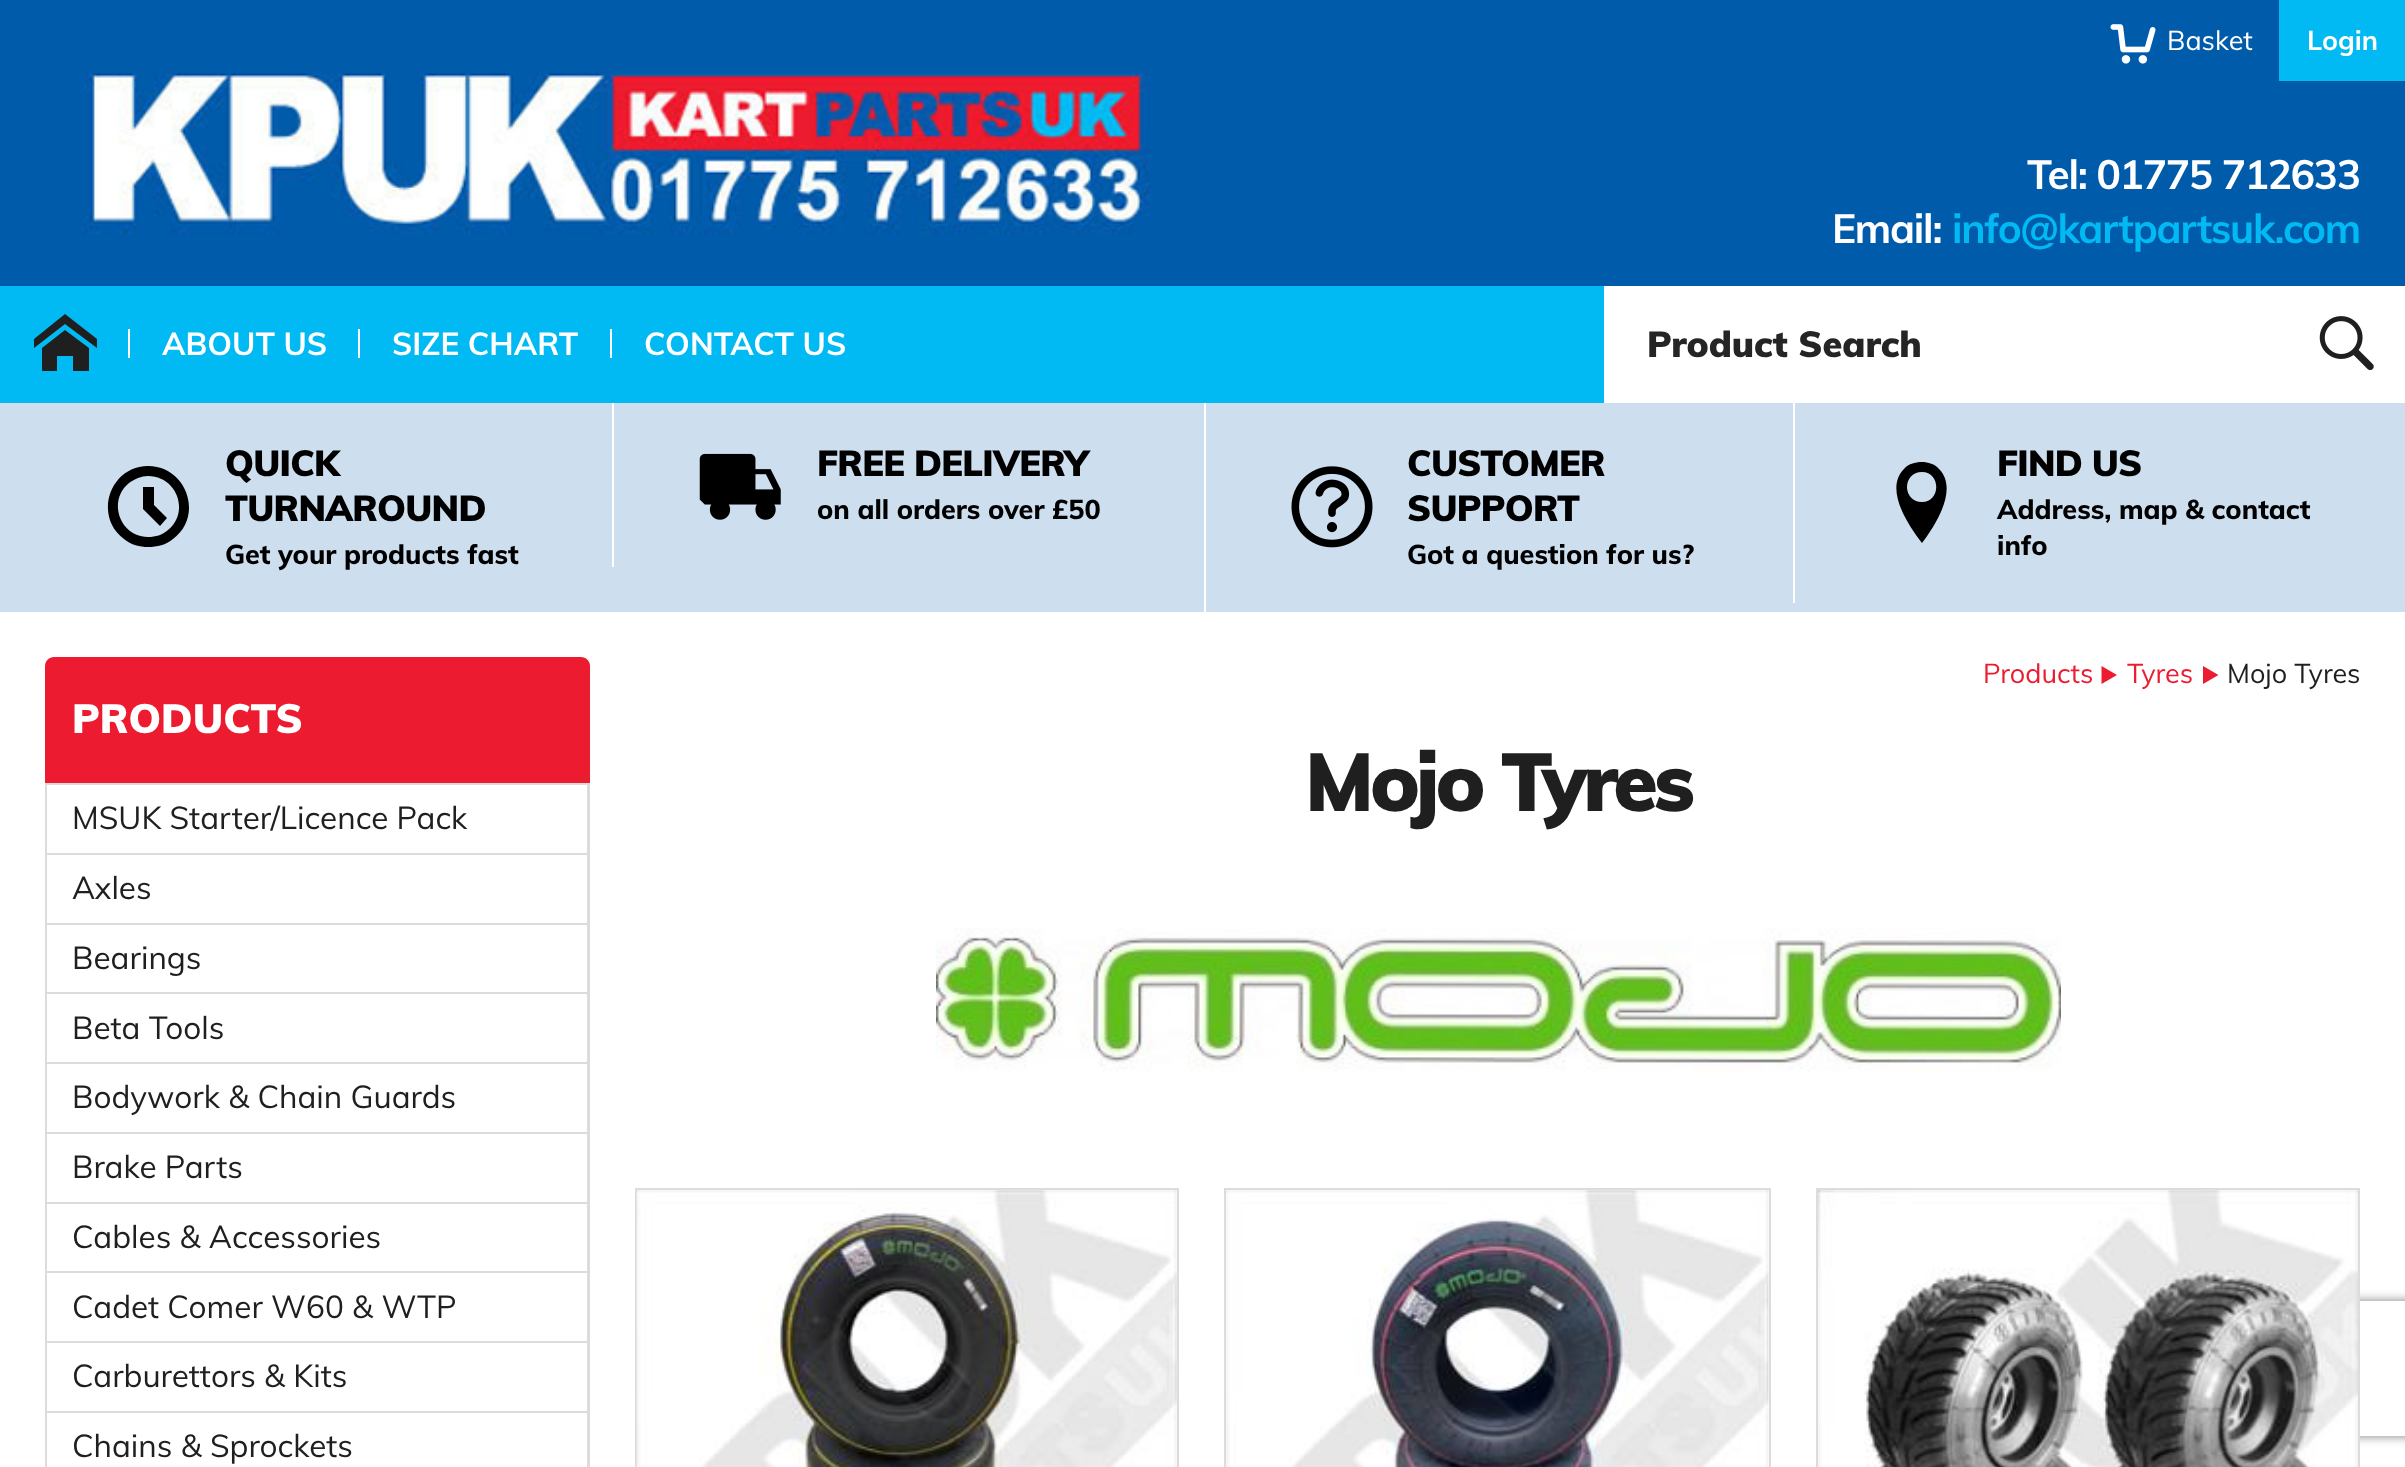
<?xml version="1.0" encoding="UTF-8"?>
<svg xmlns="http://www.w3.org/2000/svg" xmlns:xlink="http://www.w3.org/1999/xlink" width="2405" height="1467">
  <defs>
    <clipPath id="clip1"><path d="M 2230 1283 h 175 v 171 h -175 z m 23 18 h 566 c 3 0 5 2 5 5 v 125 c 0 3 -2 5 -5 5 h -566 c -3 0 -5 -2 -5 -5 v -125 c 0 -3 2 -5 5 -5 z" clip-rule="evenodd" /></clipPath>
  </defs>
  <rect width="100%" height="100%" fill="#ffffff" />
  <rect width="2405" height="286" fill="#005baa" />
  <image x="83" y="73" width="1068" height="162" xlink:href="image1.png" />
  <image x="2110" y="24" width="46" height="40" xlink:href="image2.png" />
  <rect x="2279" width="126" height="81" fill="#01baf3" />
  <rect y="286" width="1604" height="117" fill="#01baf3" />
  <path d="M 97 348 l -32 -24 l -31 24 v -9 l 31 -25 l 32 25 z m -8 0 v 23 h -16 v -15 h -16 v 15 h -15 v -23 l 23 -18 z" fill="#1f1f1f" />
  <rect x="128" y="329" width="2" height="29" fill="#ffffff" />
  <rect x="358" y="329" width="2" height="29" fill="#ffffff" />
  <rect x="610" y="329" width="2" height="29" fill="#ffffff" />
  <image x="2319" y="316" width="55" height="55" xlink:href="image3.png" />
  <rect y="403" width="2405" height="209" fill="#cddeee" />
  <path d="M 160 526 l -17 -17 v -22 h 11 v 18 l 13 13 z m -12 -60 c -38 0 -55 50 -24 73 c 7 6 16 8 24 8 c 9 0 18 -2 25 -8 c 31 -23 14 -73 -25 -73 z m 0 71 c -28 0 -41 -36 -19 -54 c 6 -4 12 -7 19 -7 c 29 0 42 36 20 54 c -6 5 -12 7 -20 7 z" fill="#000000" />
  <rect x="612" y="403" width="2" height="164" fill="#ffffff" />
  <image x="699" y="453" width="82" height="67" xlink:href="image4.png" />
  <rect x="1204" y="403" width="2" height="209" fill="#ffffff" />
  <image x="1291" y="466" width="82" height="82" xlink:href="image5.png" />
  <rect x="1793" y="403" width="2" height="200" fill="#ffffff" />
  <path d="M 1922 462 c -7 0 -14 2 -18 7 c -20 20 4 56 18 74 c 13 -17 37 -54 17 -74 c -4 -5 -11 -7 -17 -7 z m 0 40 c -20 0 -20 -30 0 -30 c 19 0 19 30 0 30 z" fill="#000000" />
  <path d="M 54 657 h 527 c 5 0 9 4 9 9 v 117 h -545 v -117 c 0 -5 4 -9 9 -9 z" fill="#ec1b30" />
  <path d="M 45 783 h 545 v 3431 c 0 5 -5 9 -10 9 h -526 c -5 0 -9 -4 -9 -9 z m 2 0 h 540 v 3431 c 0 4 -3 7 -7 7 h -526 c -4 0 -7 -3 -7 -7 z" fill="#dcdcdc" fill-rule="evenodd" />
  <rect x="47" y="783" width="540" height="2" fill="#dcdcdc" />
  <rect x="47" y="853" width="540" height="2" fill="#dcdcdc" />
  <rect x="47" y="923" width="540" height="2" fill="#dcdcdc" />
  <rect x="47" y="992" width="540" height="2" fill="#dcdcdc" />
  <rect x="47" y="1062" width="540" height="2" fill="#dcdcdc" />
  <rect x="47" y="1132" width="540" height="2" fill="#dcdcdc" />
  <rect x="47" y="1202" width="540" height="2" fill="#dcdcdc" />
  <rect x="47" y="1271" width="540" height="2" fill="#dcdcdc" />
  <rect x="47" y="1341" width="540" height="2" fill="#dcdcdc" />
  <rect x="47" y="1411" width="540" height="2" fill="#dcdcdc" />
  <path d="M 2101.5 684 v -18 l 15.5 9 z" fill="#ec1b30" />
  <path d="M 2203 684 v -18 l 15.5 9 z" fill="#ec1b30" />
  <image x="936" y="928" width="1125" height="146" xlink:href="image6.png" />
  <rect x="636" y="1189" width="542" height="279" fill="none" stroke="#dcdcdc" stroke-width="2" />
  <image x="636" y="1190" width="541" height="277" xlink:href="image7.png" />
  <rect x="1225" y="1189" width="545" height="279" fill="none" stroke="#dcdcdc" stroke-width="2" />
  <image x="1226" y="1190" width="543" height="277" xlink:href="image8.png" />
  <g clip-path="url(#clip1)">
    <rect x="2248" y="1301" width="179" height="135" rx="5" fill="#808080" filter="blur(5.5px)" />
  </g>
  <rect x="1817" y="1189" width="542" height="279" fill="none" stroke="#dcdcdc" stroke-width="2" />
  <image x="1818" y="1190" width="540" height="277" xlink:href="image9.png" />
  <text x="2167" y="50" style="font-family: Muli; font-size: 27px; fill: #ffffff">Basket</text>
  <text x="2307" y="50" style="font-family: Muli; font-size: 27px; font-weight: bold; fill: #ffffff">Login</text>
  <text x="2027" y="189" style="font-family: Muli; font-size: 40.5px; font-weight: bold; letter-spacing: -1.25px; fill: #ffffff">Tel: 01775 712633</text>
  <text x="1832" y="243" style="font-family: Muli; font-size: 40.5px; font-weight: bold; letter-spacing: -1.25px; fill: #ffffff">Email:</text>
  <text x="1952" y="243" style="font-family: Muli; font-size: 40.5px; font-weight: bold; letter-spacing: -1.25px; fill: #01baf3">info@kartpartsuk.com</text>
  <text x="162" y="355" style="font-family: Muli; font-size: 31.5px; font-weight: bold; fill: #ffffff">ABOUT US</text>
  <text x="392" y="355" style="font-family: Muli; font-size: 31.5px; font-weight: bold; fill: #ffffff">SIZE CHART</text>
  <text x="644" y="355" style="font-family: Muli; font-size: 31.5px; font-weight: bold; fill: #ffffff">CONTACT US</text>
  <text x="1647" y="357" style="font-family: Muli; font-size: 36px; font-weight: 900; fill: #252525">Product Search</text>
  <text x="225" y="476" style="font-family: Muli; font-size: 36px; font-weight: 900; letter-spacing: -0.75px; fill: #000000">QUICK</text>
  <text x="225" y="521" style="font-family: Muli; font-size: 36px; font-weight: 900; letter-spacing: -0.75px; fill: #000000">TURNAROUND</text>
  <text x="225" y="564" style="font-family: Muli; font-size: 27px; font-weight: 800; fill: #000000">Get your products fast</text>
  <text x="817" y="476" style="font-family: Muli; font-size: 36px; font-weight: 900; letter-spacing: -0.75px; fill: #000000">FREE DELIVERY</text>
  <text x="817" y="519" style="font-family: Muli; font-size: 27px; font-weight: 800; fill: #000000">on all orders over £50</text>
  <text x="1407" y="476" style="font-family: Muli; font-size: 36px; font-weight: 900; letter-spacing: -0.75px; fill: #000000">CUSTOMER</text>
  <text x="1407" y="521" style="font-family: Muli; font-size: 36px; font-weight: 900; letter-spacing: -0.75px; fill: #000000">SUPPORT</text>
  <text x="1407" y="564" style="font-family: Muli; font-size: 27px; font-weight: 800; fill: #000000">Got a question for us?</text>
  <text x="1997" y="476" style="font-family: Muli; font-size: 36px; font-weight: 900; letter-spacing: -0.75px; fill: #000000">FIND US</text>
  <text x="1997" y="519" style="font-family: Muli; font-size: 27px; font-weight: 800; fill: #000000">Address, map &amp; contact</text>
  <text x="1997" y="555" style="font-family: Muli; font-size: 27px; font-weight: 800; fill: #000000">info</text>
  <text x="72" y="733" style="font-family: Muli; font-size: 40.5px; font-weight: 900; fill: #ffffff">PRODUCTS</text>
  <text x="72" y="829" style="font-family: Muli; font-size: 31.5px; fill: #1f1f1f">MSUK Starter/Licence Pack</text>
  <text x="72" y="899" style="font-family: Muli; font-size: 31.5px; fill: #1f1f1f">Axles</text>
  <text x="72" y="969" style="font-family: Muli; font-size: 31.5px; fill: #1f1f1f">Bearings</text>
  <text x="72" y="1039" style="font-family: Muli; font-size: 31.5px; fill: #1f1f1f">Beta Tools</text>
  <text x="72" y="1108" style="font-family: Muli; font-size: 31.5px; fill: #1f1f1f">Bodywork &amp; Chain Guards</text>
  <text x="72" y="1178" style="font-family: Muli; font-size: 31.5px; fill: #1f1f1f">Brake Parts</text>
  <text x="72" y="1248" style="font-family: Muli; font-size: 31.5px; fill: #1f1f1f">Cables &amp; Accessories</text>
  <text x="72" y="1318" style="font-family: Muli; font-size: 31.5px; fill: #1f1f1f">Cadet Comer W60 &amp; WTP</text>
  <text x="72" y="1387" style="font-family: Muli; font-size: 31.5px; fill: #1f1f1f">Carburettors &amp; Kits</text>
  <text x="72" y="1457" style="font-family: Muli; font-size: 31.5px; fill: #1f1f1f">Chains &amp; Sprockets</text>
  <text x="1983" y="683" style="font-family: Muli; font-size: 27px; fill: #ec1b30">Products</text>
  <text x="2127" y="683" style="font-family: Muli; font-size: 27px; fill: #ec1b30">Tyres</text>
  <text x="2227" y="683" style="font-family: Muli; font-size: 27px; fill: #1f1f1f">Mojo Tyres</text>
  <text x="1305" y="811" style="font-family: Muli; font-size: 81px; font-weight: 900; letter-spacing: -4px; fill: #1f1f1f">Mojo Tyres</text>
</svg>
